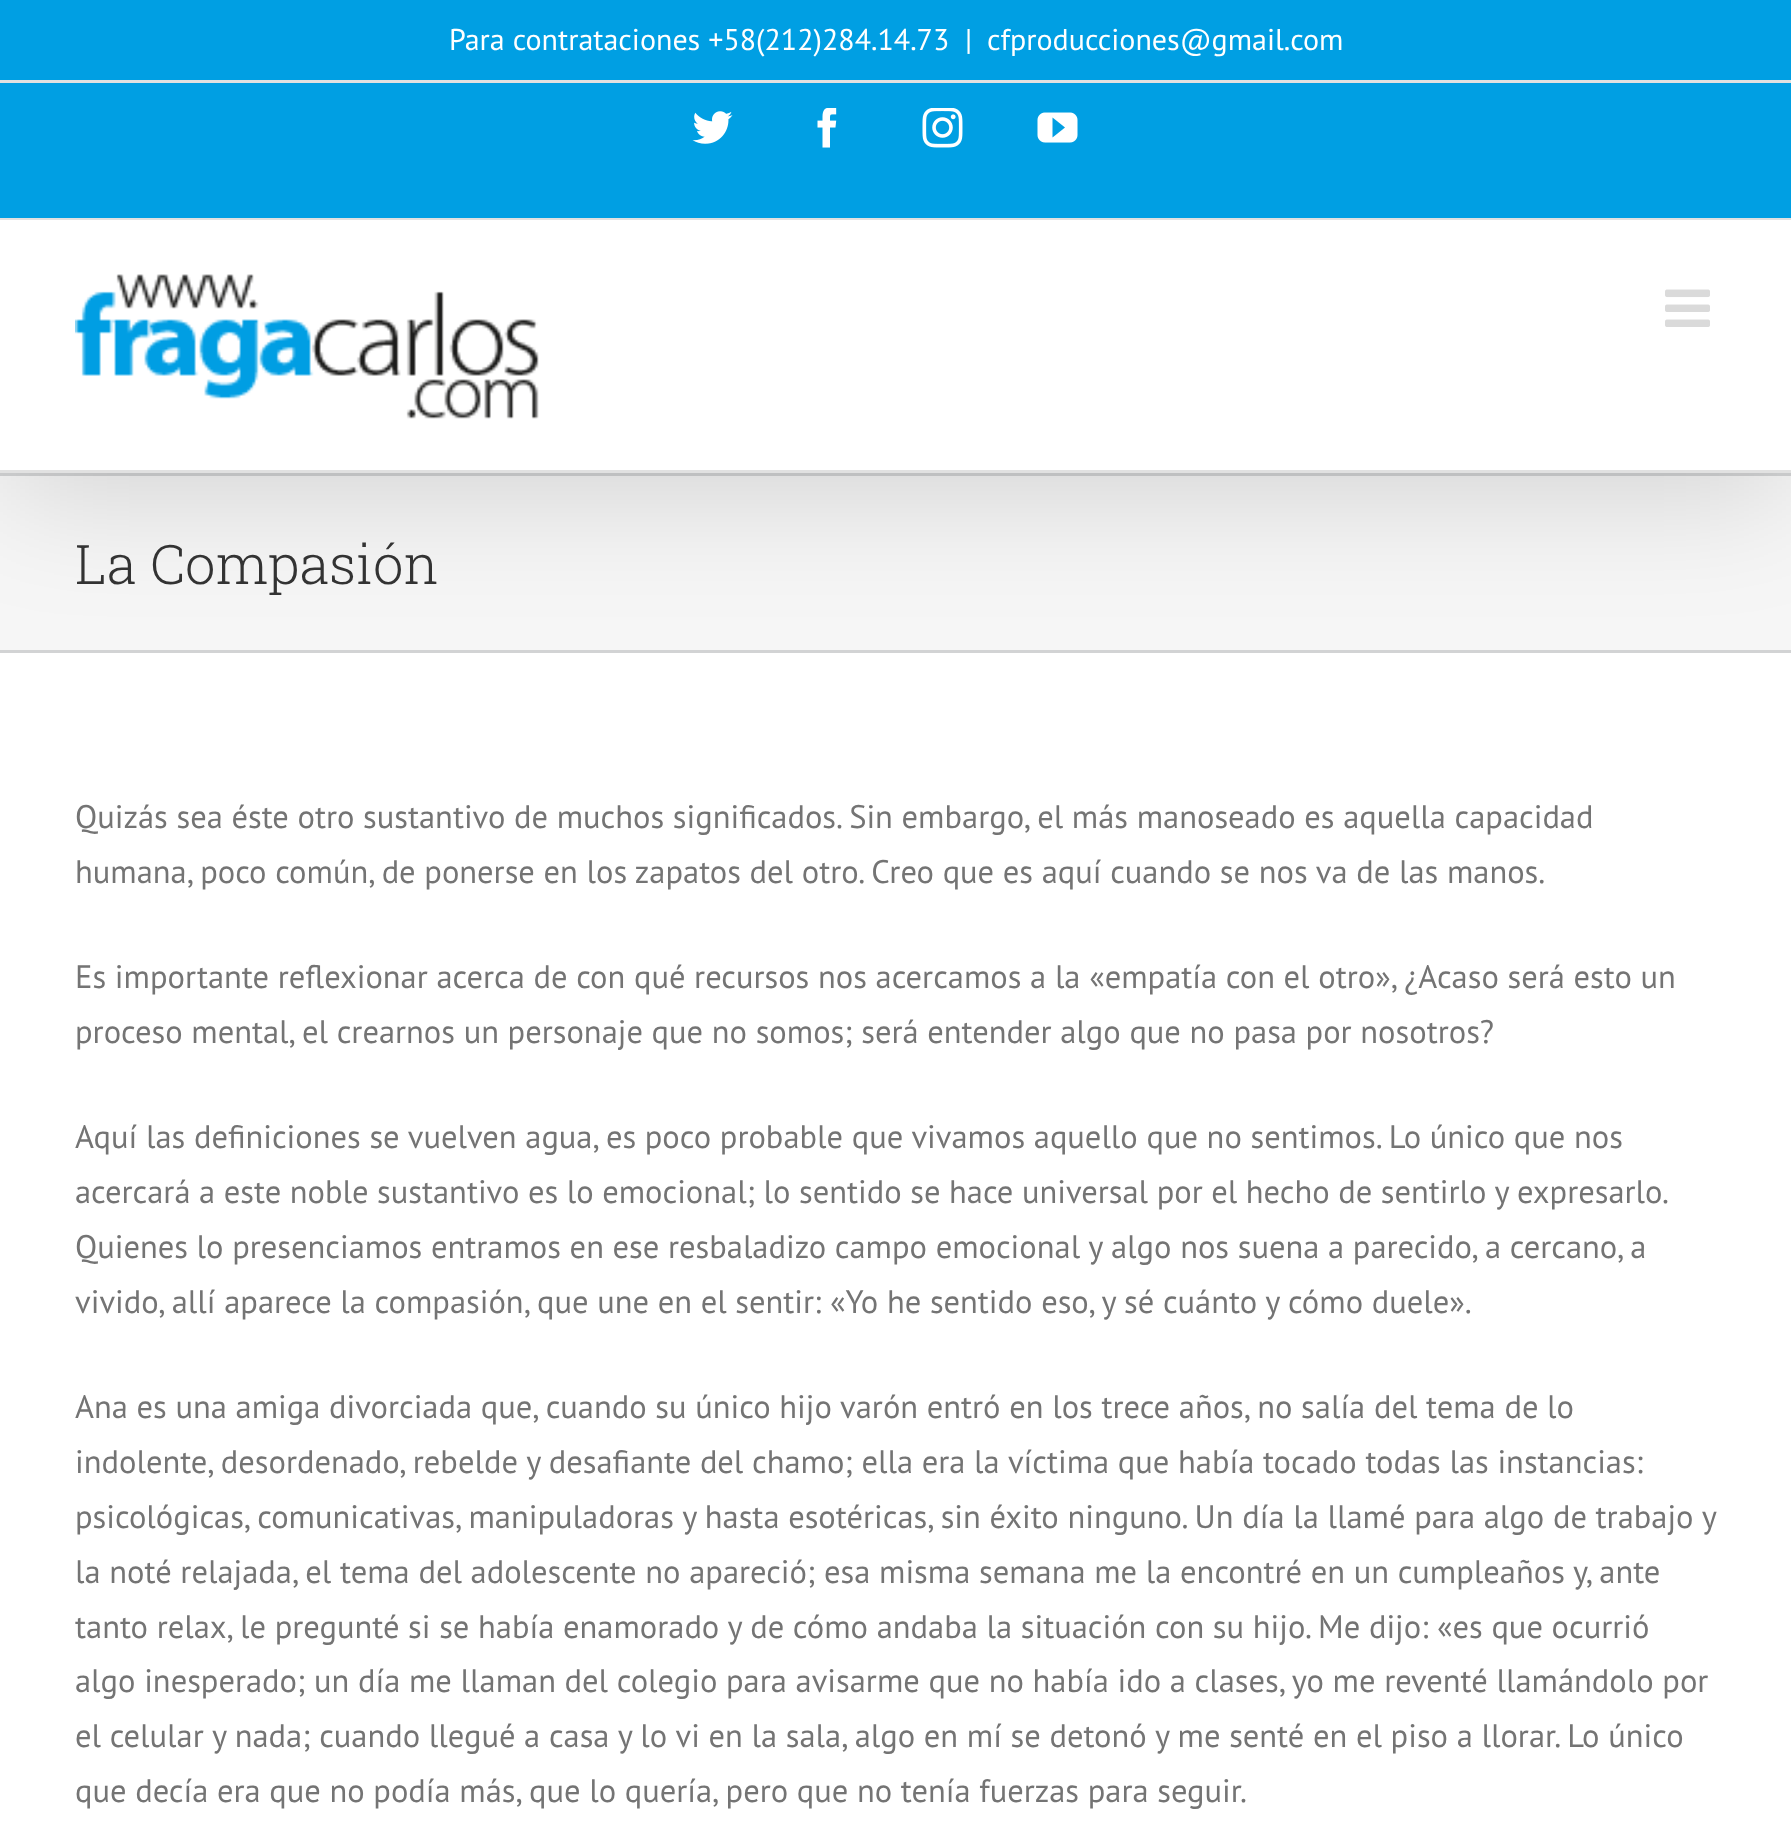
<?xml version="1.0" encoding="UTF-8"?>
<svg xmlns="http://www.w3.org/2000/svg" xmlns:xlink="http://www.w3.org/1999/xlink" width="1791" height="1839">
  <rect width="100%" height="100%" fill="#ffffff" />
  <rect y="476" width="1791" height="174" fill="#f6f6f6" />
  <rect y="473" width="1791" height="3" fill="#d2d3d4" />
  <rect y="650" width="1791" height="3" fill="#d2d3d4" />
  <rect x="5" y="30" width="1783" height="463" fill="#000000" fill-opacity="0.14" filter="blur(62.5px)" />
  <rect width="1791" height="218" fill="#009fe3" />
  <rect y="218" width="1791" height="2" fill="#e1e1e1" />
  <rect y="80" width="1791" height="3" fill="#e1e1e1" />
  <image x="692" y="111" width="41" height="33" xlink:href="image1.png" />
  <image x="817" y="108" width="20" height="40" xlink:href="image2.png" />
  <image x="922" y="108" width="41" height="40" xlink:href="image3.png" />
  <image x="1037" y="112" width="41" height="31" xlink:href="image4.png" />
  <rect y="220" width="1791" height="250" fill="#ffffff" />
  <rect y="470" width="1791" height="3" fill="#e1e1e1" />
  <image x="75" y="274" width="464" height="145" xlink:href="image5.png" />
  <image x="1665" y="289" width="45" height="38" xlink:href="image6.png" />
  <text x="449" y="50" style="font-family: PT Sans; font-size: 30px; fill: #ffffff">Para contrataciones +58(212)284.14.73</text>
  <text x="965" y="50" style="font-family: PT Sans; font-size: 30px; fill: #ffffff">|</text>
  <text x="987" y="50" style="font-family: PT Sans; font-size: 30px; fill: #ffffff">cfproducciones@gmail.com</text>
  <text x="75" y="584" style="font-family: Roboto Slab; font-size: 54.5px; font-weight: 300; fill: #333333">La Compasión</text>
  <text x="75" y="828" style="font-family: PT Sans; font-size: 32.5px; fill: #747474">Quizás sea éste otro sustantivo de muchos significados. Sin embargo, el más manoseado es aquella capacidad</text>
  <text x="75" y="883" style="font-family: PT Sans; font-size: 32.5px; fill: #747474">humana, poco común, de ponerse en los zapatos del otro. Creo que es aquí cuando se nos va de las manos.</text>
  <text x="75" y="988" style="font-family: PT Sans; font-size: 32.5px; fill: #747474">Es importante reflexionar acerca de con qué recursos nos acercamos a la «empatía con el otro», ¿Acaso será esto un</text>
  <text x="75" y="1043" style="font-family: PT Sans; font-size: 32.5px; fill: #747474">proceso mental, el crearnos un personaje que no somos; será entender algo que no pasa por nosotros?</text>
  <text x="75" y="1148" style="font-family: PT Sans; font-size: 32.5px; fill: #747474">Aquí las definiciones se vuelven agua, es poco probable que vivamos aquello que no sentimos. Lo único que nos</text>
  <text x="75" y="1203" word-spacing="-0.1" style="font-family: PT Sans; font-size: 32.5px; fill: #747474">acercará a este noble sustantivo es lo emocional; lo sentido se hace universal por el hecho de sentirlo y expresarlo.</text>
  <text x="75" y="1258" style="font-family: PT Sans; font-size: 32.5px; fill: #747474">Quienes lo presenciamos entramos en ese resbaladizo campo emocional y algo nos suena a parecido, a cercano, a</text>
  <text x="75" y="1313" style="font-family: PT Sans; font-size: 32.5px; fill: #747474">vivido, allí aparece la compasión, que une en el sentir: «Yo he sentido eso, y sé cuánto y cómo duele».</text>
  <text x="75" y="1418" style="font-family: PT Sans; font-size: 32.5px; fill: #747474">Ana es una amiga divorciada que, cuando su único hijo varón entró en los trece años, no salía del tema de lo</text>
  <text x="75" y="1473" style="font-family: PT Sans; font-size: 32.5px; fill: #747474">indolente, desordenado, rebelde y desafiante del chamo; ella era la víctima que había tocado todas las instancias:</text>
  <text x="75" y="1528" style="font-family: PT Sans; font-size: 32.5px; fill: #747474">psicológicas, comunicativas, manipuladoras y hasta esotéricas, sin éxito ninguno. Un día la llamé para algo de trabajo y</text>
  <text x="75" y="1583" style="font-family: PT Sans; font-size: 32.5px; fill: #747474">la noté relajada, el tema del adolescente no apareció; esa misma semana me la encontré en un cumpleaños y, ante</text>
  <text x="75" y="1638" style="font-family: PT Sans; font-size: 32.5px; fill: #747474">tanto relax, le pregunté si se había enamorado y de cómo andaba la situación con su hijo. Me dijo: «es que ocurrió</text>
  <text x="75" y="1692" style="font-family: PT Sans; font-size: 32.5px; fill: #747474">algo inesperado; un día me llaman del colegio para avisarme que no había ido a clases, yo me reventé llamándolo por</text>
  <text x="75" y="1747" style="font-family: PT Sans; font-size: 32.5px; fill: #747474">el celular y nada; cuando llegué a casa y lo vi en la sala, algo en mí se detonó y me senté en el piso a llorar. Lo único</text>
  <text x="75" y="1802" style="font-family: PT Sans; font-size: 32.5px; fill: #747474">que decía era que no podía más, que lo quería, pero que no tenía fuerzas para seguir.</text>
</svg>
